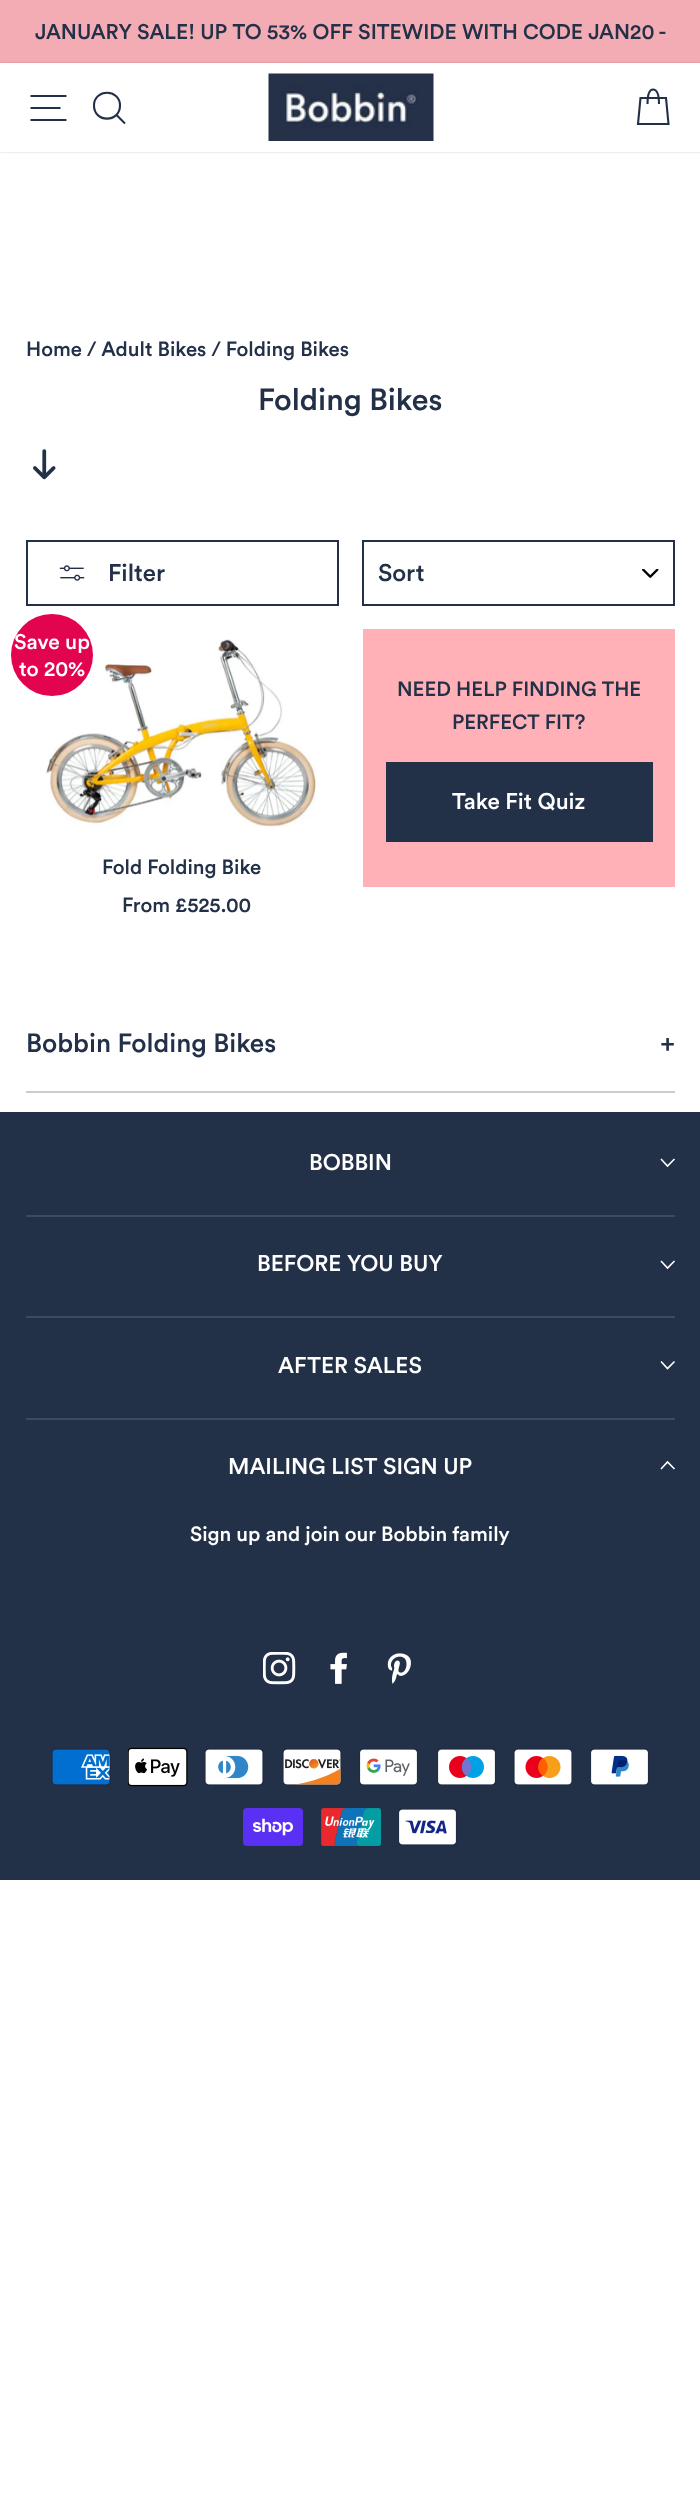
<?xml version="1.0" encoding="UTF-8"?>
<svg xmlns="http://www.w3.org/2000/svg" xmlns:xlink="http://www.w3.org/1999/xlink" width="700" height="2509">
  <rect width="100%" height="100%" fill="#ffffff" />
  <rect width="700" height="63" fill="#f3acb4" />
  <rect y="63" width="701" height="89" fill="#000000" fill-opacity="0.2" filter="blur(1px)" />
  <rect y="63" width="700" height="89" fill="#ffffff" />
  <path d="M 30.5 96 h 36 m -36 12 h 30 m -30 12 h 36" fill="none" stroke="#223048" stroke-width="2.1" />
  <path d="M 120 105.5 c 0 17.5 -26 17.5 -26 0 c 0 -17 26 -17 26 0 z m 5 18 l -8.5 -8.5" fill="none" stroke="#223048" stroke-width="2.1" />
  <image x="268" y="73" width="166" height="68" xlink:href="image1.png" />
  <path d="M 647.5 104 c 0 -11.5 2.5 -14.5 5.5 -14.5 c 3.5 0 6 3 6 14.5 m -18.5 -6 h 25.5 l 2.5 26 h -30.5 z" fill="none" stroke="#223048" stroke-width="2.1" />
  <image x="33" y="449" width="23" height="31" xlink:href="image2.png" />
  <rect x="27" y="541" width="311" height="64" fill="none" stroke="#223048" stroke-width="2" />
  <image x="59" y="565" width="26" height="16" xlink:href="image3.png" />
  <image x="642" y="569" width="17" height="9" xlink:href="image4.png" />
  <rect x="363" y="541" width="311" height="64" fill="none" stroke="#223048" stroke-width="2" />
  <image x="46" y="639" width="271" height="188" xlink:href="image5.png" />
  <circle cx="52" cy="655" r="41" fill="#e30450" />
  <rect x="363" y="629" width="312" height="258" fill="#ffb1b7" />
  <rect x="386" y="762" width="267" height="80" fill="#223048" />
  <rect x="26" y="1091" width="649" height="2" fill="#cccccc" />
  <rect y="1112" width="700" height="768" fill="#223048" />
  <path d="M 661 1159 l 6.5 7 l 7 -7" fill="none" stroke="#ffffff" stroke-width="1.6" />
  <rect x="26" y="1215" width="649" height="2" fill="#3d495e" />
  <path d="M 661 1261 l 6.5 7 l 7 -7" fill="none" stroke="#ffffff" stroke-width="1.6" />
  <rect x="26" y="1316" width="649" height="2" fill="#3d495e" />
  <path d="M 661 1361.5 l 6.5 7 l 7 -7" fill="none" stroke="#ffffff" stroke-width="1.6" />
  <rect x="26" y="1418" width="649" height="2" fill="#3d495e" />
  <path d="M 661 1469 l 6.5 -7 l 7 7" fill="none" stroke="#ffffff" stroke-width="1.6" />
  <image x="263" y="1652" width="33" height="33" xlink:href="image6.png" />
  <image x="330" y="1652" width="17" height="32" xlink:href="image7.png" />
  <image x="387" y="1653" width="24" height="31" xlink:href="image8.png" />
  <image x="51" y="1748" width="60" height="38" xlink:href="image9.png" />
  <image x="128" y="1747" width="60" height="40" xlink:href="image10.png" />
  <image x="204" y="1748" width="60" height="38" xlink:href="image11.png" />
  <image x="282" y="1748" width="60" height="38" xlink:href="image12.png" />
  <image x="359" y="1748" width="59" height="38" xlink:href="image13.png" />
  <image x="437" y="1748" width="59" height="38" xlink:href="image14.png" />
  <image x="513" y="1748" width="60" height="38" xlink:href="image15.png" />
  <image x="590" y="1748" width="59" height="38" xlink:href="image16.png" />
  <image x="243" y="1808" width="60" height="38" xlink:href="image17.png" />
  <image x="321" y="1808" width="60" height="38" xlink:href="image18.png" />
  <image x="398" y="1808" width="59" height="38" xlink:href="image19.png" />
  <text x="35" y="39" style="font-family: Circular; font-size: 21px; font-weight: 500; fill: #223048">JANUARY SALE! UP TO 53% OFF SITEWIDE WITH CODE JAN20 -</text>
  <text x="26" y="356" style="font-family: Circular; font-size: 20.4px; font-weight: 500; fill: #223048">Home / Adult Bikes / Folding Bikes</text>
  <text x="258" y="410" style="font-family: Circular; font-size: 30.5px; font-weight: 500; fill: #223048">Folding Bikes</text>
  <text x="108" y="581" style="font-family: Circular; font-size: 24px; font-weight: 500; fill: #223048">Filter</text>
  <text x="378" y="581" style="font-family: Circular; font-size: 24px; font-weight: 500; fill: #223048">Sort</text>
  <text x="14" y="649" style="font-family: Circular; font-size: 21px; font-weight: 500; fill: #ffffff">Save up</text>
  <text x="19" y="676" style="font-family: Circular; font-size: 21px; font-weight: 500; fill: #ffffff">to 20%</text>
  <text x="122" y="912" style="font-family: Circular; font-size: 20.4px; font-weight: 500; fill: #223048">From £525.00</text>
  <text x="102" y="874" style="font-family: Circular; font-size: 20.4px; font-weight: 500; fill: #223048">Fold Folding Bike</text>
  <text x="397" y="696" style="font-family: Circular; font-size: 20.4px; font-weight: 500; fill: #223048">NEED HELP FINDING THE</text>
  <text x="452" y="729" style="font-family: Circular; font-size: 20.4px; font-weight: 500; fill: #223048">PERFECT FIT?</text>
  <text x="452" y="809" style="font-family: Circular; font-size: 22.5px; font-weight: 500; fill: #ffffff">Take Fit Quiz</text>
  <text x="26" y="1052" style="font-family: Circular; font-size: 26.25px; font-weight: 500; fill: #223048">Bobbin Folding Bikes</text>
  <text x="660" y="1052" style="font-family: Circular; font-size: 26.25px; font-weight: 500; fill: #223048">+</text>
  <text x="309" y="1170" style="font-family: Circular; font-size: 22.5px; font-weight: 500; fill: #ffffff">BOBBIN</text>
  <text x="257" y="1271" style="font-family: Circular; font-size: 22.5px; font-weight: 500; fill: #ffffff">BEFORE YOU BUY</text>
  <text x="278" y="1373" style="font-family: Circular; font-size: 22.5px; font-weight: 500; fill: #ffffff">AFTER SALES</text>
  <text x="228" y="1474" style="font-family: Circular; font-size: 22.5px; font-weight: 500; fill: #ffffff">MAILING LIST SIGN UP</text>
  <text x="190" y="1541" style="font-family: Circular; font-size: 20.4px; font-weight: 500; fill: #ffffff">Sign up and join our Bobbin family</text>
</svg>
